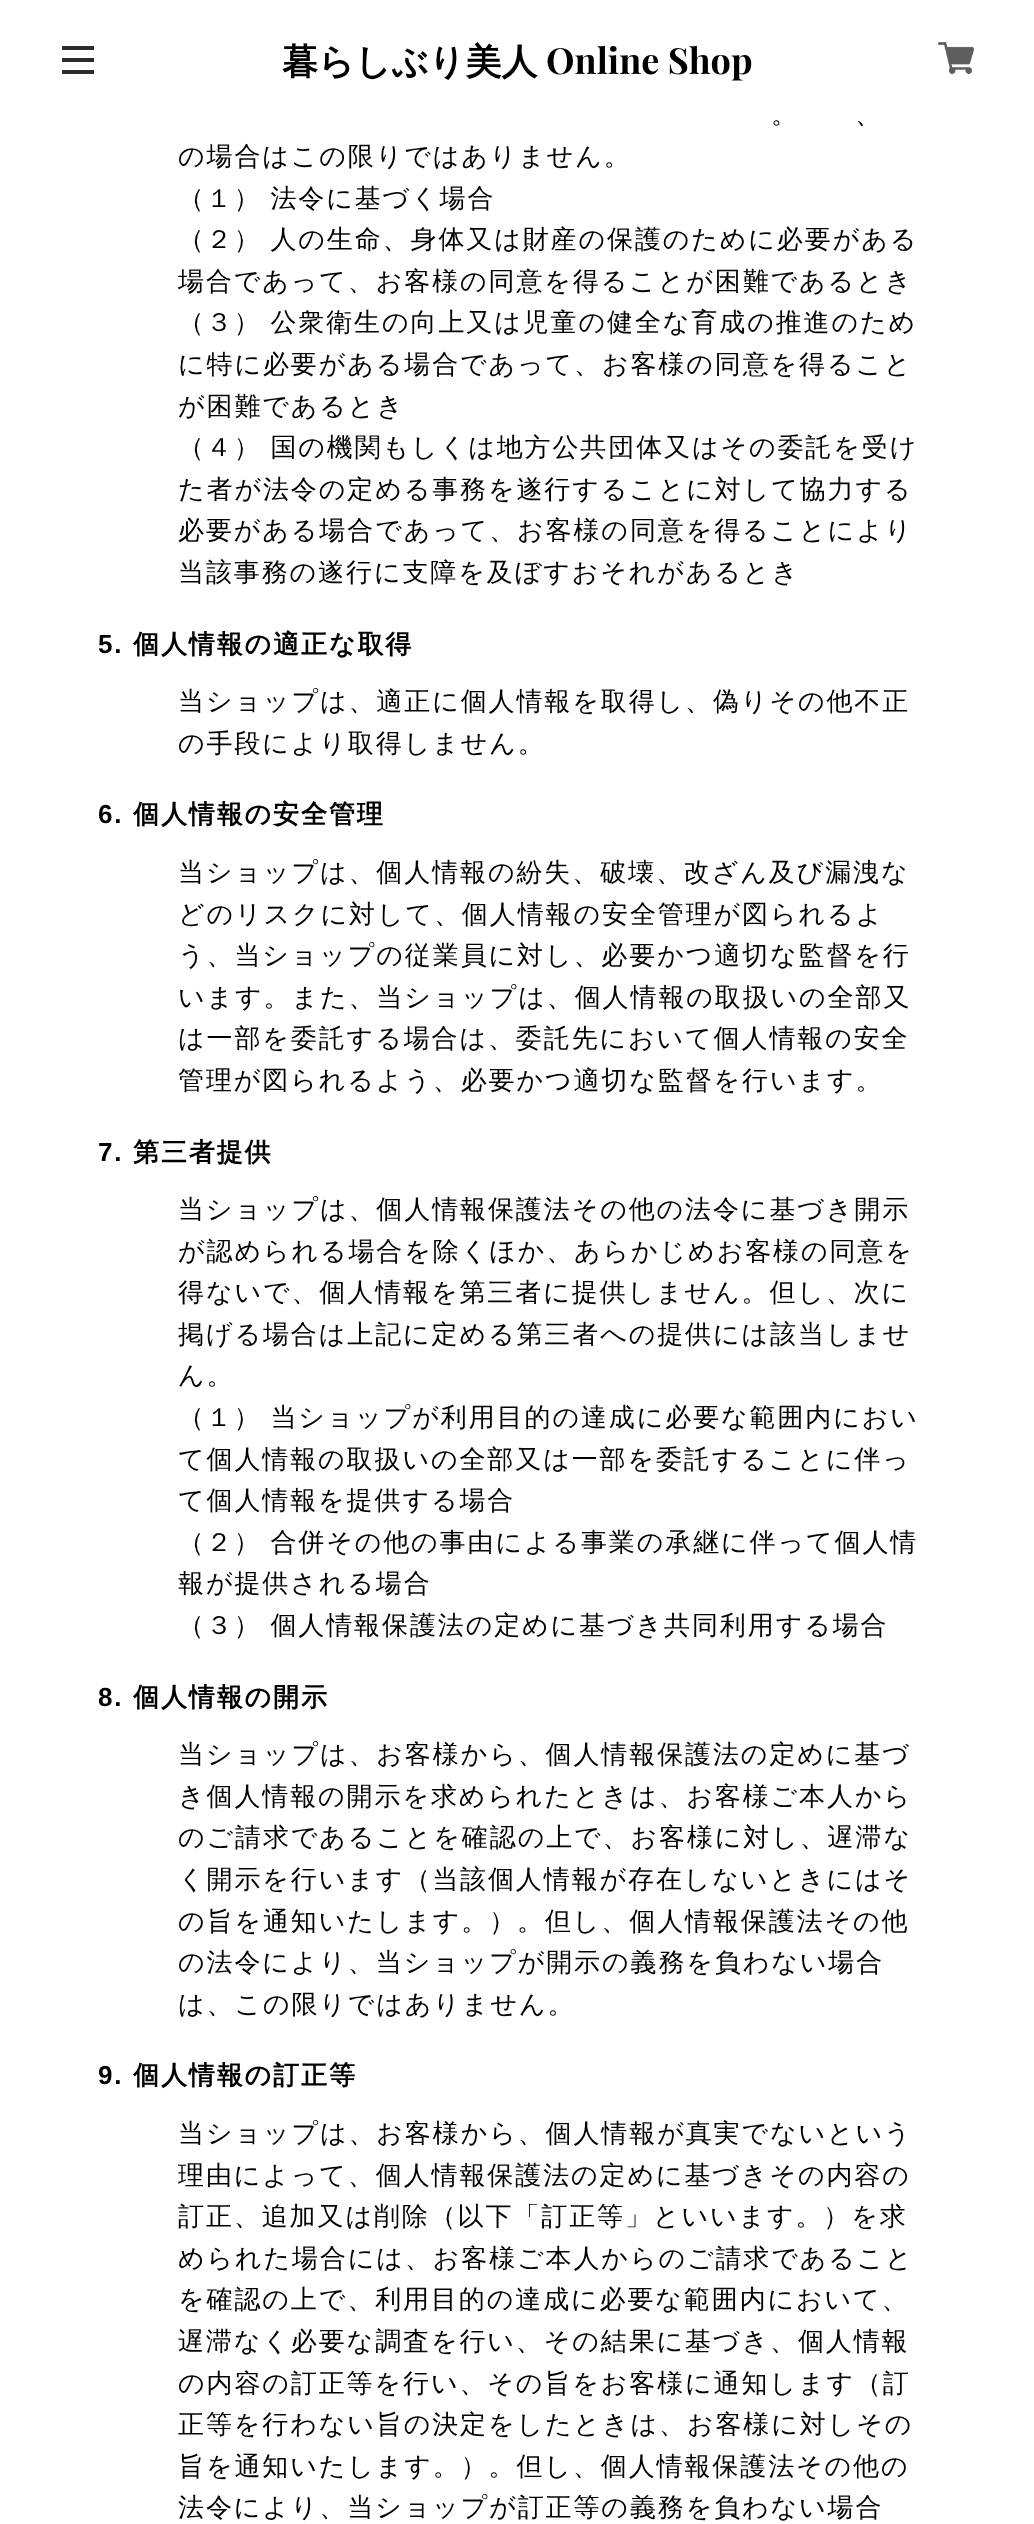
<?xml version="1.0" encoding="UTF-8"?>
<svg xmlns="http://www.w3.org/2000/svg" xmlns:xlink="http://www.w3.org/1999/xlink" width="1034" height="2524">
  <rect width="100%" height="100%" fill="#ffffff" />
  <rect x="62" y="46" width="32" height="4" fill="#2c2c2c" />
  <rect x="62" y="58" width="32" height="4" fill="#2c2c2c" />
  <rect x="62" y="70" width="32" height="4" fill="#2c2c2c" />
  <image x="938" y="42" width="36" height="33" xlink:href="image1.png" />
  <text x="282" y="74" style="font-family: WenQuanYi Zen Hei; font-size: 36px; font-weight: bold; fill: #000000">暮らしぶり美人</text>
  <text x="546" y="74" style="font-family: Playfair Display; font-size: 36px; font-weight: bold; fill: #000000">Online Shop</text>
  <text x="771" y="123" style="font-family: WenQuanYi Zen Hei; font-size: 26px; font-weight: 500; letter-spacing: 1.9px; fill: #000000">。</text>
  <text x="855" y="123" style="font-family: WenQuanYi Zen Hei; font-size: 26px; font-weight: 500; letter-spacing: 1.9px; fill: #000000">、</text>
  <text x="178" y="165" style="font-family: WenQuanYi Zen Hei; font-size: 26px; font-weight: 500; letter-spacing: 1.9px; fill: #000000">の場合はこの限りではありません。</text>
  <text x="178" y="207" word-spacing="-1" style="font-family: WenQuanYi Zen Hei; font-size: 26px; font-weight: 500; letter-spacing: 1.9px; fill: #000000">（１） 法令に基づく場合</text>
  <text x="178" y="248" word-spacing="-1" style="font-family: WenQuanYi Zen Hei; font-size: 26px; font-weight: 500; letter-spacing: 1.9px; fill: #000000">（２） 人の生命、身体又は財産の保護のために必要がある</text>
  <text x="178" y="290" style="font-family: WenQuanYi Zen Hei; font-size: 26px; font-weight: 500; letter-spacing: 1.9px; fill: #000000">場合であって、お客様の同意を得ることが困難であるとき</text>
  <text x="178" y="331" word-spacing="-1" style="font-family: WenQuanYi Zen Hei; font-size: 26px; font-weight: 500; letter-spacing: 1.9px; fill: #000000">（３） 公衆衛生の向上又は児童の健全な育成の推進のため</text>
  <text x="178" y="373" style="font-family: WenQuanYi Zen Hei; font-size: 26px; font-weight: 500; letter-spacing: 1.9px; fill: #000000">に特に必要がある場合であって、お客様の同意を得ること</text>
  <text x="178" y="415" style="font-family: WenQuanYi Zen Hei; font-size: 26px; font-weight: 500; letter-spacing: 1.9px; fill: #000000">が困難であるとき</text>
  <text x="178" y="456" word-spacing="-1" style="font-family: WenQuanYi Zen Hei; font-size: 26px; font-weight: 500; letter-spacing: 1.9px; fill: #000000">（４） 国の機関もしくは地方公共団体又はその委託を受け</text>
  <text x="178" y="498" style="font-family: WenQuanYi Zen Hei; font-size: 26px; font-weight: 500; letter-spacing: 1.9px; fill: #000000">た者が法令の定める事務を遂行することに対して協力する</text>
  <text x="178" y="539" style="font-family: WenQuanYi Zen Hei; font-size: 26px; font-weight: 500; letter-spacing: 1.9px; fill: #000000">必要がある場合であって、お客様の同意を得ることにより</text>
  <text x="178" y="581" style="font-family: WenQuanYi Zen Hei; font-size: 26px; font-weight: 500; letter-spacing: 1.9px; fill: #000000">当該事務の遂行に支障を及ぼすおそれがあるとき</text>
  <text x="98" y="653" style="font-family: Liberation Sans; font-size: 26px; font-weight: bold; letter-spacing: 1.9px; fill: #000000">5.</text>
  <text x="133" y="653" style="font-family: WenQuanYi Zen Hei; font-size: 26px; font-weight: bold; letter-spacing: 1.9px; fill: #000000">個人情報の適正な取得</text>
  <text x="178" y="710" style="font-family: WenQuanYi Zen Hei; font-size: 26px; font-weight: 500; letter-spacing: 1.9px; fill: #000000">当ショップは、適正に個人情報を取得し、偽りその他不正</text>
  <text x="178" y="752" style="font-family: WenQuanYi Zen Hei; font-size: 26px; font-weight: 500; letter-spacing: 1.9px; fill: #000000">の手段により取得しません。</text>
  <text x="98" y="823" style="font-family: Liberation Sans; font-size: 26px; font-weight: bold; letter-spacing: 1.9px; fill: #000000">6.</text>
  <text x="133" y="823" style="font-family: WenQuanYi Zen Hei; font-size: 26px; font-weight: bold; letter-spacing: 1.9px; fill: #000000">個人情報の安全管理</text>
  <text x="178" y="881" style="font-family: WenQuanYi Zen Hei; font-size: 26px; font-weight: 500; letter-spacing: 1.9px; fill: #000000">当ショップは、個人情報の紛失、破壊、改ざん及び漏洩な</text>
  <text x="178" y="923" style="font-family: WenQuanYi Zen Hei; font-size: 26px; font-weight: 500; letter-spacing: 1.9px; fill: #000000">どのリスクに対して、個人情報の安全管理が図られるよ</text>
  <text x="178" y="964" style="font-family: WenQuanYi Zen Hei; font-size: 26px; font-weight: 500; letter-spacing: 1.9px; fill: #000000">う、当ショップの従業員に対し、必要かつ適切な監督を行</text>
  <text x="178" y="1006" style="font-family: WenQuanYi Zen Hei; font-size: 26px; font-weight: 500; letter-spacing: 1.9px; fill: #000000">います。また、当ショップは、個人情報の取扱いの全部又</text>
  <text x="178" y="1047" style="font-family: WenQuanYi Zen Hei; font-size: 26px; font-weight: 500; letter-spacing: 1.9px; fill: #000000">は一部を委託する場合は、委託先において個人情報の安全</text>
  <text x="178" y="1089" style="font-family: WenQuanYi Zen Hei; font-size: 26px; font-weight: 500; letter-spacing: 1.9px; fill: #000000">管理が図られるよう、必要かつ適切な監督を行います。</text>
  <text x="98" y="1161" style="font-family: Liberation Sans; font-size: 26px; font-weight: bold; letter-spacing: 1.9px; fill: #000000">7.</text>
  <text x="133" y="1161" style="font-family: WenQuanYi Zen Hei; font-size: 26px; font-weight: bold; letter-spacing: 1.9px; fill: #000000">第三者提供</text>
  <text x="178" y="1218" style="font-family: WenQuanYi Zen Hei; font-size: 26px; font-weight: 500; letter-spacing: 1.9px; fill: #000000">当ショップは、個人情報保護法その他の法令に基づき開示</text>
  <text x="178" y="1260" style="font-family: WenQuanYi Zen Hei; font-size: 26px; font-weight: 500; letter-spacing: 1.9px; fill: #000000">が認められる場合を除くほか、あらかじめお客様の同意を</text>
  <text x="178" y="1301" style="font-family: WenQuanYi Zen Hei; font-size: 26px; font-weight: 500; letter-spacing: 1.9px; fill: #000000">得ないで、個人情報を第三者に提供しません。但し、次に</text>
  <text x="178" y="1343" style="font-family: WenQuanYi Zen Hei; font-size: 26px; font-weight: 500; letter-spacing: 1.9px; fill: #000000">掲げる場合は上記に定める第三者への提供には該当しませ</text>
  <text x="178" y="1384" style="font-family: WenQuanYi Zen Hei; font-size: 26px; font-weight: 500; letter-spacing: 1.9px; fill: #000000">ん。</text>
  <text x="178" y="1426" word-spacing="-1" style="font-family: WenQuanYi Zen Hei; font-size: 26px; font-weight: 500; letter-spacing: 1.9px; fill: #000000">（１） 当ショップが利用目的の達成に必要な範囲内におい</text>
  <text x="178" y="1468" style="font-family: WenQuanYi Zen Hei; font-size: 26px; font-weight: 500; letter-spacing: 1.9px; fill: #000000">て個人情報の取扱いの全部又は一部を委託することに伴っ</text>
  <text x="178" y="1509" style="font-family: WenQuanYi Zen Hei; font-size: 26px; font-weight: 500; letter-spacing: 1.9px; fill: #000000">て個人情報を提供する場合</text>
  <text x="178" y="1551" word-spacing="-1" style="font-family: WenQuanYi Zen Hei; font-size: 26px; font-weight: 500; letter-spacing: 1.9px; fill: #000000">（２） 合併その他の事由による事業の承継に伴って個人情</text>
  <text x="178" y="1592" style="font-family: WenQuanYi Zen Hei; font-size: 26px; font-weight: 500; letter-spacing: 1.9px; fill: #000000">報が提供される場合</text>
  <text x="178" y="1634" word-spacing="-1" style="font-family: WenQuanYi Zen Hei; font-size: 26px; font-weight: 500; letter-spacing: 1.9px; fill: #000000">（３） 個人情報保護法の定めに基づき共同利用する場合</text>
  <text x="98" y="1706" style="font-family: Liberation Sans; font-size: 26px; font-weight: bold; letter-spacing: 1.9px; fill: #000000">8.</text>
  <text x="133" y="1706" style="font-family: WenQuanYi Zen Hei; font-size: 26px; font-weight: bold; letter-spacing: 1.9px; fill: #000000">個人情報の開示</text>
  <text x="178" y="1763" style="font-family: WenQuanYi Zen Hei; font-size: 26px; font-weight: 500; letter-spacing: 1.9px; fill: #000000">当ショップは、お客様から、個人情報保護法の定めに基づ</text>
  <text x="178" y="1805" style="font-family: WenQuanYi Zen Hei; font-size: 26px; font-weight: 500; letter-spacing: 1.9px; fill: #000000">き個人情報の開示を求められたときは、お客様ご本人から</text>
  <text x="178" y="1846" style="font-family: WenQuanYi Zen Hei; font-size: 26px; font-weight: 500; letter-spacing: 1.9px; fill: #000000">のご請求であることを確認の上で、お客様に対し、遅滞な</text>
  <text x="178" y="1888" style="font-family: WenQuanYi Zen Hei; font-size: 26px; font-weight: 500; letter-spacing: 1.9px; fill: #000000">く開示を行います（当該個人情報が存在しないときにはそ</text>
  <text x="178" y="1930" style="font-family: WenQuanYi Zen Hei; font-size: 26px; font-weight: 500; letter-spacing: 1.9px; fill: #000000">の旨を通知いたします。）。但し、個人情報保護法その他</text>
  <text x="178" y="1971" style="font-family: WenQuanYi Zen Hei; font-size: 26px; font-weight: 500; letter-spacing: 1.9px; fill: #000000">の法令により、当ショップが開示の義務を負わない場合</text>
  <text x="178" y="2013" style="font-family: WenQuanYi Zen Hei; font-size: 26px; font-weight: 500; letter-spacing: 1.9px; fill: #000000">は、この限りではありません。</text>
  <text x="98" y="2084" style="font-family: Liberation Sans; font-size: 26px; font-weight: bold; letter-spacing: 1.9px; fill: #000000">9.</text>
  <text x="133" y="2084" style="font-family: WenQuanYi Zen Hei; font-size: 26px; font-weight: bold; letter-spacing: 1.9px; fill: #000000">個人情報の訂正等</text>
  <text x="178" y="2142" style="font-family: WenQuanYi Zen Hei; font-size: 26px; font-weight: 500; letter-spacing: 1.9px; fill: #000000">当ショップは、お客様から、個人情報が真実でないという</text>
  <text x="178" y="2184" style="font-family: WenQuanYi Zen Hei; font-size: 26px; font-weight: 500; letter-spacing: 1.9px; fill: #000000">理由によって、個人情報保護法の定めに基づきその内容の</text>
  <text x="178" y="2225" style="font-family: WenQuanYi Zen Hei; font-size: 26px; font-weight: 500; letter-spacing: 1.9px; fill: #000000">訂正、追加又は削除（以下「訂正等」といいます。）を求</text>
  <text x="178" y="2267" style="font-family: WenQuanYi Zen Hei; font-size: 26px; font-weight: 500; letter-spacing: 1.9px; fill: #000000">められた場合には、お客様ご本人からのご請求であること</text>
  <text x="178" y="2308" style="font-family: WenQuanYi Zen Hei; font-size: 26px; font-weight: 500; letter-spacing: 1.9px; fill: #000000">を確認の上で、利用目的の達成に必要な範囲内において、</text>
  <text x="178" y="2350" style="font-family: WenQuanYi Zen Hei; font-size: 26px; font-weight: 500; letter-spacing: 1.9px; fill: #000000">遅滞なく必要な調査を行い、その結果に基づき、個人情報</text>
  <text x="178" y="2392" style="font-family: WenQuanYi Zen Hei; font-size: 26px; font-weight: 500; letter-spacing: 1.9px; fill: #000000">の内容の訂正等を行い、その旨をお客様に通知します（訂</text>
  <text x="178" y="2433" style="font-family: WenQuanYi Zen Hei; font-size: 26px; font-weight: 500; letter-spacing: 1.9px; fill: #000000">正等を行わない旨の決定をしたときは、お客様に対しその</text>
  <text x="178" y="2475" style="font-family: WenQuanYi Zen Hei; font-size: 26px; font-weight: 500; letter-spacing: 1.9px; fill: #000000">旨を通知いたします。）。但し、個人情報保護法その他の</text>
  <text x="178" y="2516" style="font-family: WenQuanYi Zen Hei; font-size: 26px; font-weight: 500; letter-spacing: 1.9px; fill: #000000">法令により、当ショップが訂正等の義務を負わない場合</text>
</svg>
